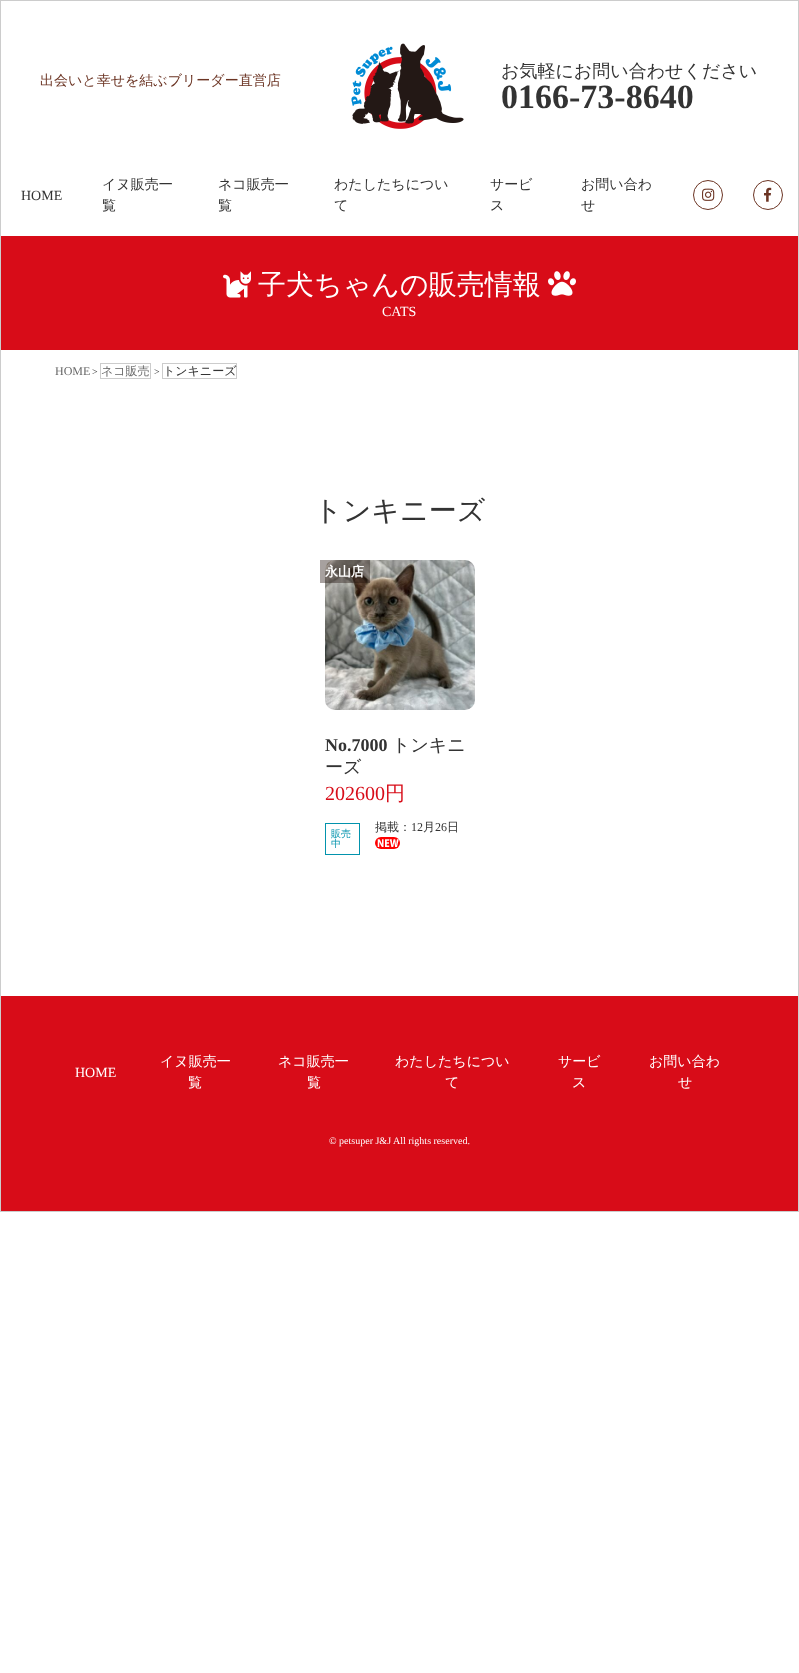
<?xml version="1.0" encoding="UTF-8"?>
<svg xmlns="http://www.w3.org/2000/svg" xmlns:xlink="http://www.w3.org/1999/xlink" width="799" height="1673">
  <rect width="100%" height="100%" fill="#ffffff" />
  <rect x="0.5" y="0.5" width="798" height="1211" fill="none" stroke="#cccccc" />
  <image x="351" y="43" width="113" height="86" xlink:href="image1.png" />
  <circle cx="708" cy="195" r="14.5" fill="none" stroke="#6c3524" />
  <image x="702" y="188" width="13" height="13" xlink:href="image2.png" />
  <circle cx="768" cy="195" r="14.5" fill="none" stroke="#6c3524" />
  <image x="764" y="187" width="8" height="15" xlink:href="image3.png" />
  <rect x="1" y="236" width="797" height="114" fill="#d80c18" />
  <image x="223" y="271" width="28" height="27" xlink:href="image4.png" />
  <image x="548" y="271" width="28" height="25" xlink:href="image5.png" />
  <rect x="100.5" y="363.5" width="50" height="15" fill="none" stroke="#cccccc" />
  <rect x="162.5" y="363.5" width="74" height="15" fill="none" stroke="#cccccc" />
  <image x="325" y="560" width="150" height="150" xlink:href="image6.png" />
  <rect x="320" y="560" width="50" height="23" fill="#24140e" fill-opacity="0.4" />
  <rect x="325.5" y="823.5" width="34" height="31" fill="none" stroke="#0293ad" />
  <image x="375" y="837" width="25" height="12" xlink:href="image7.png" />
  <rect x="1" y="996" width="797" height="215" fill="#d80c18" />
  <text x="40" y="85" style="font-family: WenQuanYi Zen Hei; font-size: 14px; font-weight: 500; fill: #6c3524">出会いと幸せを結ぶブリーダー直営店</text>
  <text x="501" y="77" style="font-family: WenQuanYi Zen Hei; font-size: 18px; font-weight: 500; fill: #333333">お気軽にお問い合わせください</text>
  <text x="501" y="108" style="font-family: Liberation Serif; font-size: 34px; font-weight: bold; fill: #333333">0166-73-8640</text>
  <text x="21" y="200" style="font-family: Liberation Serif; font-size: 14px; fill: #333333">HOME</text>
  <text x="102" y="189" style="font-family: WenQuanYi Zen Hei; font-size: 14px; font-weight: 500; fill: #333333">イヌ販売一</text>
  <text x="102" y="210" style="font-family: WenQuanYi Zen Hei; font-size: 14px; font-weight: 500; fill: #333333">覧</text>
  <text x="218" y="189" style="font-family: WenQuanYi Zen Hei; font-size: 14px; font-weight: 500; fill: #333333">ネコ販売一</text>
  <text x="218" y="210" style="font-family: WenQuanYi Zen Hei; font-size: 14px; font-weight: 500; fill: #333333">覧</text>
  <text x="334" y="189" style="font-family: WenQuanYi Zen Hei; font-size: 14px; font-weight: 500; fill: #333333">わたしたちについ</text>
  <text x="334" y="210" style="font-family: WenQuanYi Zen Hei; font-size: 14px; font-weight: 500; fill: #333333">て</text>
  <text x="490" y="189" style="font-family: WenQuanYi Zen Hei; font-size: 14px; font-weight: 500; fill: #333333">サービ</text>
  <text x="490" y="210" style="font-family: WenQuanYi Zen Hei; font-size: 14px; font-weight: 500; fill: #333333">ス</text>
  <text x="581" y="189" style="font-family: WenQuanYi Zen Hei; font-size: 14px; font-weight: 500; fill: #333333">お問い合わ</text>
  <text x="581" y="210" style="font-family: WenQuanYi Zen Hei; font-size: 14px; font-weight: 500; fill: #333333">せ</text>
  <text x="258" y="294" style="font-family: WenQuanYi Zen Hei; font-size: 28px; font-weight: 500; fill: #ffffff">子犬ちゃんの販売情報</text>
  <text x="382" y="316" style="font-family: Liberation Serif; font-size: 14px; fill: #ffffff">CATS</text>
  <text x="55" y="375" style="font-family: Liberation Serif; font-size: 12px; fill: #666666">HOME</text>
  <text x="92" y="375" style="font-family: Liberation Serif; font-size: 10px; fill: #333333">&gt;</text>
  <text x="101" y="375" style="font-family: WenQuanYi Zen Hei; font-size: 12px; font-weight: 500; fill: #666666">ネコ販売</text>
  <text x="154" y="375" style="font-family: Liberation Serif; font-size: 10px; fill: #333333">&gt;</text>
  <text x="163" y="375" style="font-family: WenQuanYi Zen Hei; font-size: 12px; font-weight: 500; fill: #333333">トンキニーズ</text>
  <text x="314" y="520" style="font-family: WenQuanYi Zen Hei; font-size: 28px; font-weight: 500; fill: #333333">トンキニーズ</text>
  <text x="325" y="576" style="font-family: WenQuanYi Zen Hei; font-size: 13px; font-weight: bold; fill: #ffffff">永山店</text>
  <text x="325" y="751" style="font-family: Liberation Serif; font-size: 18px; font-weight: bold; fill: #333333">No.7000</text>
  <text x="392" y="751" style="font-family: WenQuanYi Zen Hei; font-size: 18px; font-weight: 500; fill: #333333">トンキニ</text>
  <text x="325" y="773" style="font-family: WenQuanYi Zen Hei; font-size: 18px; font-weight: 500; fill: #333333">ーズ</text>
  <text x="325" y="800" style="font-family: Liberation Serif; font-size: 20px; fill: #d80c18">202600</text>
  <text x="385" y="800" style="font-family: WenQuanYi Zen Hei; font-size: 20px; font-weight: 500; fill: #d80c18">円</text>
  <text x="331" y="837" style="font-family: WenQuanYi Zen Hei; font-size: 10px; font-weight: 500; fill: #0293ad">販売</text>
  <text x="331" y="847" style="font-family: WenQuanYi Zen Hei; font-size: 10px; font-weight: 500; fill: #0293ad">中</text>
  <text x="375" y="831" style="font-family: WenQuanYi Zen Hei; font-size: 12px; font-weight: 500; fill: #333333">掲載：</text>
  <text x="411" y="831" style="font-family: Liberation Serif; font-size: 12px; fill: #333333">12</text>
  <text x="423" y="831" style="font-family: WenQuanYi Zen Hei; font-size: 12px; font-weight: 500; fill: #333333">月</text>
  <text x="435" y="831" style="font-family: Liberation Serif; font-size: 12px; fill: #333333">26</text>
  <text x="447" y="831" style="font-family: WenQuanYi Zen Hei; font-size: 12px; font-weight: 500; fill: #333333">日</text>
  <text x="75" y="1077" style="font-family: Liberation Serif; font-size: 14px; fill: #ffffff">HOME</text>
  <text x="160" y="1066" style="font-family: WenQuanYi Zen Hei; font-size: 14px; font-weight: 500; fill: #ffffff">イヌ販売一</text>
  <text x="188" y="1087" style="font-family: WenQuanYi Zen Hei; font-size: 14px; font-weight: 500; fill: #ffffff">覧</text>
  <text x="278" y="1066" style="font-family: WenQuanYi Zen Hei; font-size: 14px; font-weight: 500; fill: #ffffff">ネコ販売一</text>
  <text x="307" y="1087" style="font-family: WenQuanYi Zen Hei; font-size: 14px; font-weight: 500; fill: #ffffff">覧</text>
  <text x="395" y="1066" style="font-family: WenQuanYi Zen Hei; font-size: 14px; font-weight: 500; fill: #ffffff">わたしたちについ</text>
  <text x="445" y="1087" style="font-family: WenQuanYi Zen Hei; font-size: 14px; font-weight: 500; fill: #ffffff">て</text>
  <text x="558" y="1066" style="font-family: WenQuanYi Zen Hei; font-size: 14px; font-weight: 500; fill: #ffffff">サービ</text>
  <text x="572" y="1087" style="font-family: WenQuanYi Zen Hei; font-size: 14px; font-weight: 500; fill: #ffffff">ス</text>
  <text x="649" y="1066" style="font-family: WenQuanYi Zen Hei; font-size: 14px; font-weight: 500; fill: #ffffff">お問い合わ</text>
  <text x="678" y="1087" style="font-family: WenQuanYi Zen Hei; font-size: 14px; font-weight: 500; fill: #ffffff">せ</text>
  <text x="329" y="1144" style="font-family: Liberation Serif; font-size: 10px; fill: #ffffff">© petsuper J&amp;J All rights reserved.</text>
</svg>
